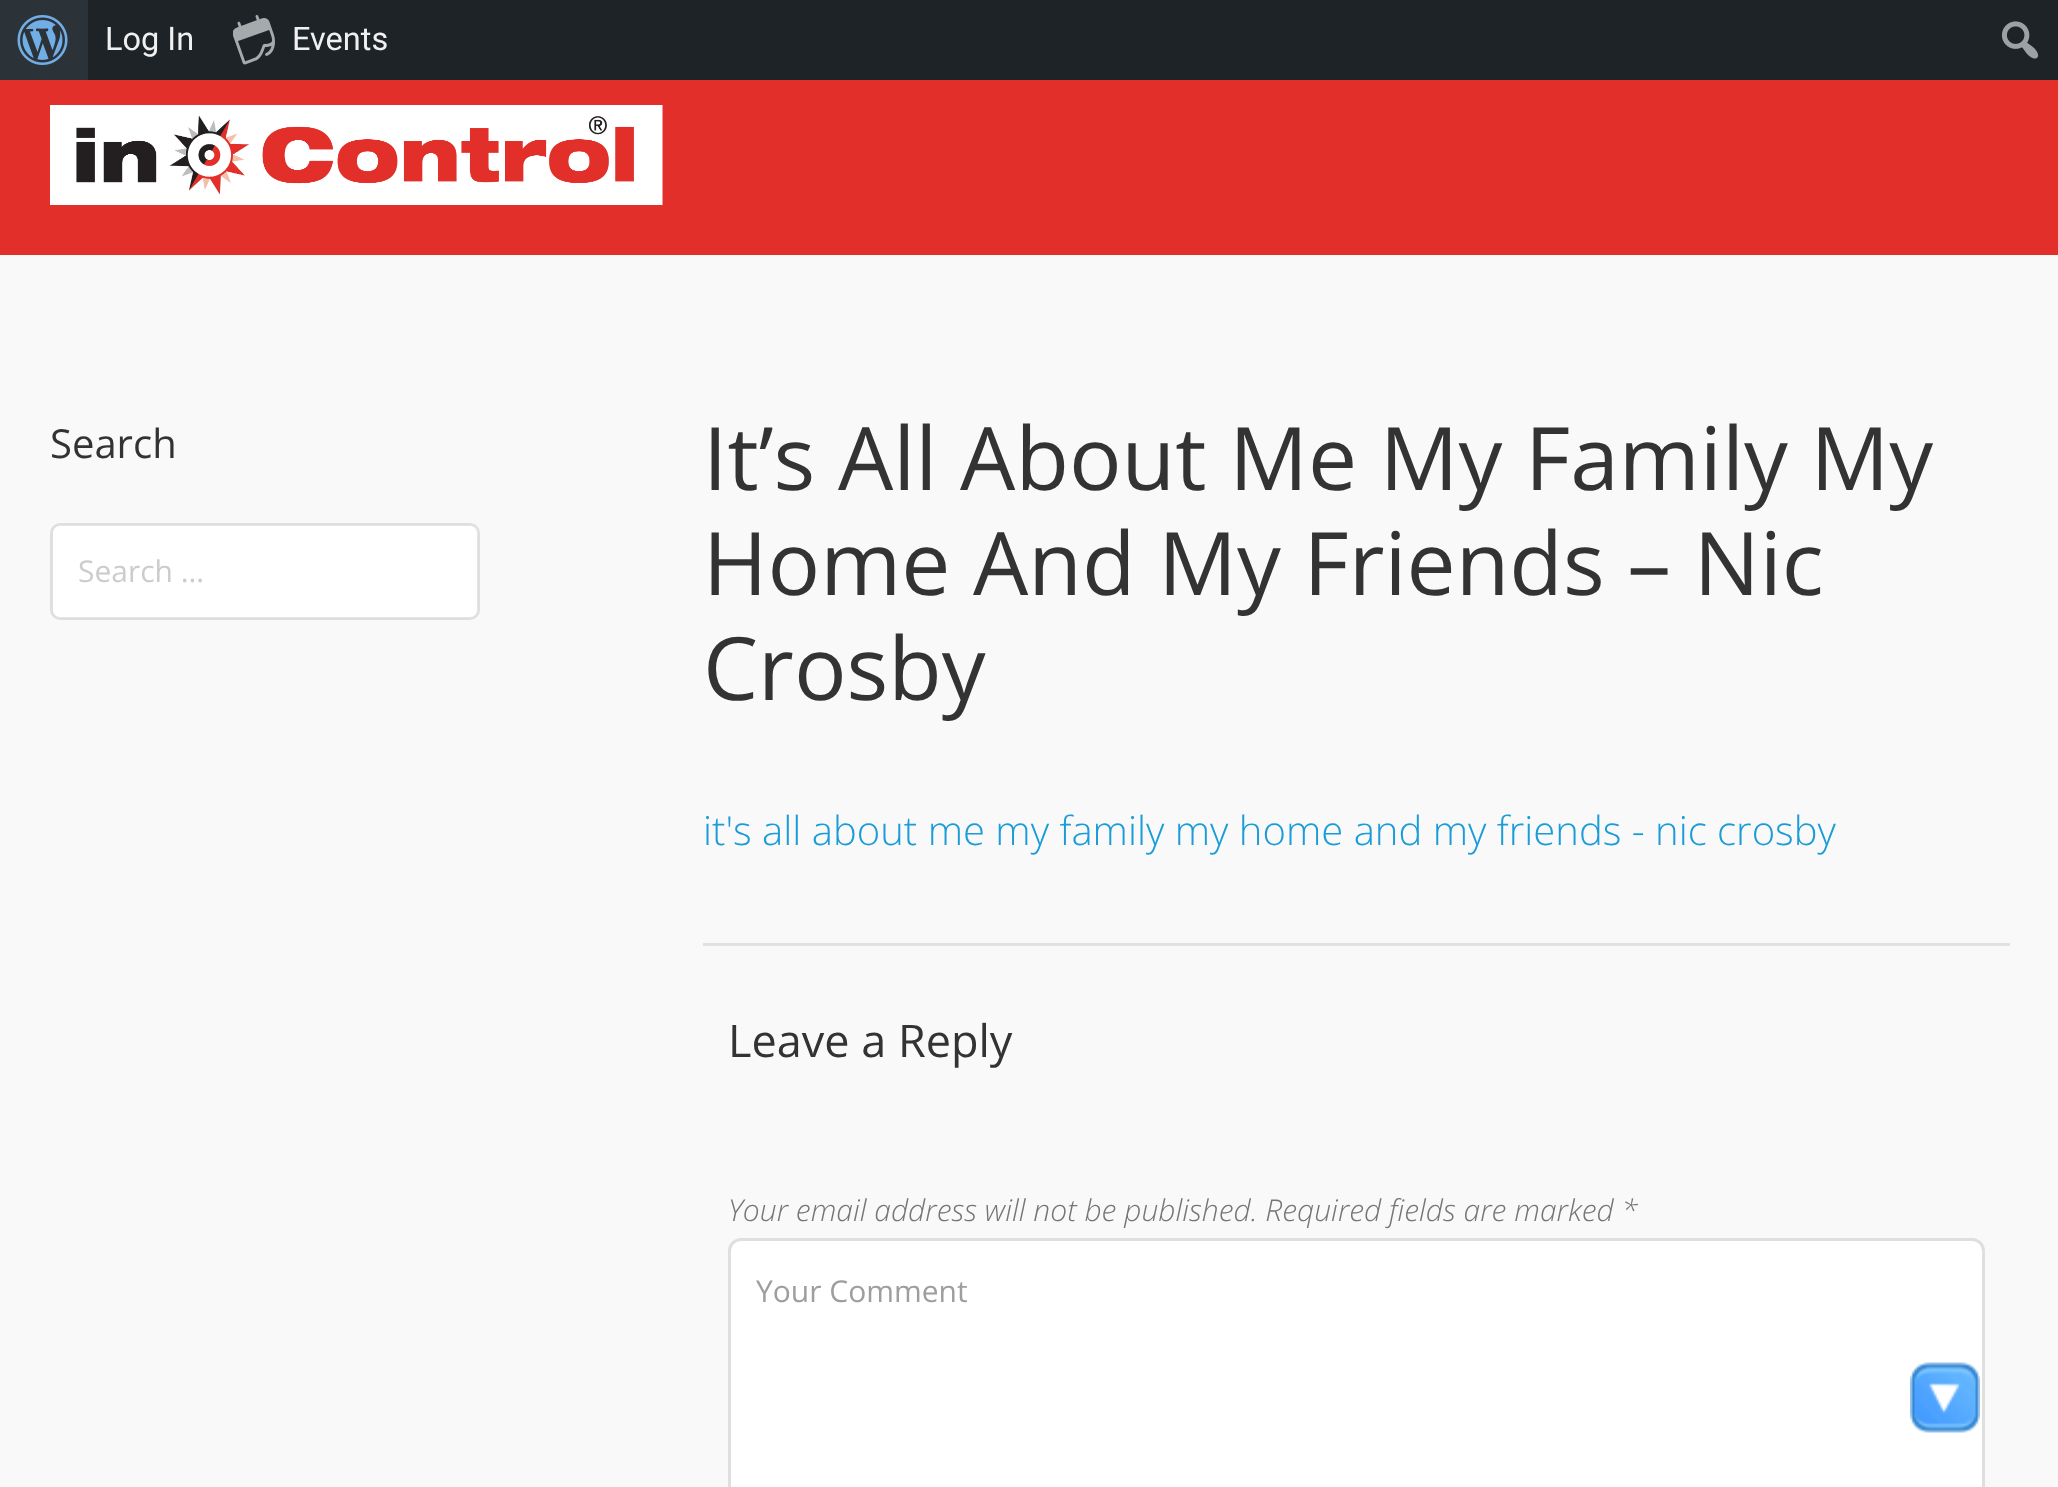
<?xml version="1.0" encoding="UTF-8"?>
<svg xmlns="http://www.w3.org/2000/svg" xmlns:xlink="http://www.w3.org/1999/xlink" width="2058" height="1487">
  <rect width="100%" height="100%" fill="#f9f9f9" />
  <rect y="80" width="2058" height="175" fill="#e32f2a" />
  <circle cx="1979" cy="74" r="56" fill="#e32f2a" />
  <rect x="88" width="1970" height="80" fill="#1d2327" />
  <rect width="88" height="80" fill="#2c3338" />
  <image x="17" y="15" width="51" height="50" xlink:href="image1.png" />
  <image x="233" y="15" width="42" height="50" xlink:href="image2.png" />
  <image x="2001" y="21" width="38" height="38" xlink:href="image3.png" />
  <image x="50" y="105" width="613" height="100" xlink:href="image4.png" />
  <rect x="53" y="525" width="425" height="93" rx="8" fill="#ffffff" />
  <rect x="51.5" y="524.5" width="427" height="94" rx="8.5" fill="none" stroke="#000000" stroke-opacity="0.1" stroke-width="3" />
  <rect x="703" y="943" width="1307" height="3" fill="#e3e0e0" />
  <rect x="730" y="1240" width="1253" height="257" rx="10" fill="#ffffff" />
  <rect x="729.5" y="1239.5" width="1254" height="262" rx="11.5" fill="none" stroke="#dfdfdf" stroke-width="3" />
  <image x="1910" y="1362" width="70" height="71" xlink:href="image5.png" />
  <text x="105" y="50" style="font-family: Roboto; font-size: 32.5px; fill: #f0f0f1">Log In</text>
  <text x="292" y="50" style="font-family: Roboto; font-size: 32.5px; fill: #f0f0f1">Events</text>
  <text x="50" y="458" style="font-family: Open Sans; font-size: 40px; fill: #333333">Search</text>
  <text x="78" y="582" style="font-family: Open Sans; font-size: 30px; fill: #cccccc">Search …</text>
  <text x="703" y="490" style="font-family: Open Sans; font-size: 87.5px; fill: #333333">It’s All About Me My Family My</text>
  <text x="703" y="595" style="font-family: Open Sans; font-size: 87.5px; fill: #333333">Home And My Friends – Nic</text>
  <text x="703" y="700" style="font-family: Open Sans; font-size: 87.5px; fill: #333333">Crosby</text>
  <text x="703" y="845" style="font-family: Open Sans; font-size: 40px; font-weight: 300; fill: #199cd8">it's all about me my family my home and my friends - nic crosby</text>
  <text x="728" y="1057" style="font-family: Open Sans; font-size: 45px; fill: #333333">Leave a Reply</text>
  <text x="728" y="1221" style="font-family: Open Sans; font-size: 30px; font-weight: 300; font-style: italic; fill: #757575">Your email address will not be published. Required fields are marked *</text>
  <text x="756" y="1302" style="font-family: Open Sans; font-size: 30px; fill: #9e9e9e">Your Comment</text>
</svg>
